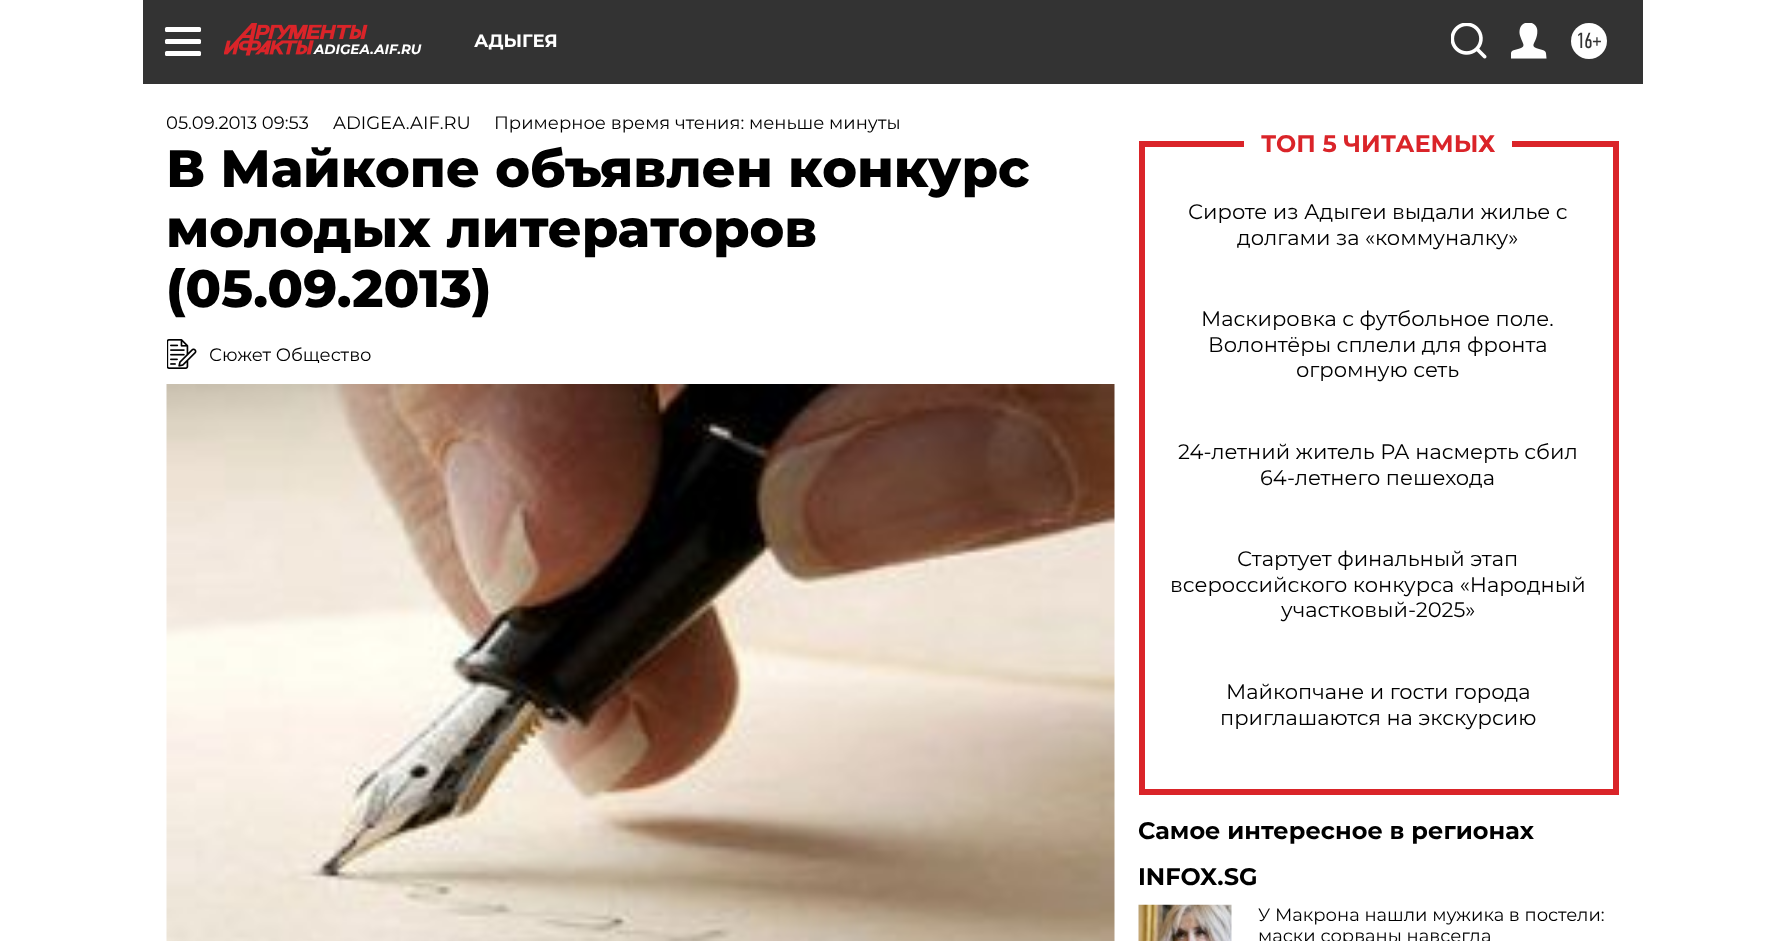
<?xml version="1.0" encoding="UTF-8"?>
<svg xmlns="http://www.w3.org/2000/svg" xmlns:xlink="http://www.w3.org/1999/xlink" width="1783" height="941">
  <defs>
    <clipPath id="clip1"><rect x="167" y="108" width="948" height="32" /></clipPath>
  </defs>
  <rect width="100%" height="100%" fill="#ffffff" />
  <rect x="143" width="1500" height="84" fill="#333333" />
  <rect x="165" y="27" width="36" height="5" rx="1.5" fill="#ffffff" />
  <rect x="165" y="39" width="36" height="5" rx="1.5" fill="#ffffff" />
  <rect x="165" y="51" width="36" height="5" rx="1.5" fill="#ffffff" />
  <image x="224" y="23" width="144" height="33" xlink:href="image1.png" />
  <image x="1451" y="23" width="36" height="36" xlink:href="image2.png" />
  <image x="1511" y="23" width="36" height="36" xlink:href="image3.png" />
  <circle cx="1589" cy="41" r="18" fill="#ffffff" />
  <image x="167" y="339" width="30" height="30" xlink:href="image4.png" />
  <image x="166" y="384" width="949" height="557" xlink:href="image5.png" />
  <rect x="1613" y="141" width="6" height="654" fill="#da2429" />
  <rect x="1139" y="789" width="480" height="6" fill="#da2429" />
  <rect x="1139" y="141" width="6" height="654" fill="#da2429" />
  <rect x="1139" y="141" width="105" height="6" fill="#da2429" />
  <rect x="1512" y="141" width="107" height="6" fill="#da2429" />
  <image x="1138" y="904" width="94" height="37" xlink:href="image6.png" />
  <text x="314" y="54" style="font-family: Montserrat; font-size: 13.5px; font-weight: bold; font-style: italic; fill: #ffffff">ADIGEA.AIF.RU</text>
  <text x="474" y="47" style="font-family: Montserrat; font-size: 18px; font-weight: bold; fill: #ffffff">АДЫГЕЯ</text>
  <text x="1576" y="48" style="font-family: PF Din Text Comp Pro; font-size: 22px; fill: #333333">16+</text>
  <g clip-path="url(#clip1)">
    <text x="166" y="129" style="font-family: Montserrat; font-size: 18px; fill: #000000">05.09.2013 09:53</text>
  </g>
  <text x="333" y="129" style="font-family: Montserrat; font-size: 18px; fill: #000000">ADIGEA.AIF.RU</text>
  <text x="494" y="129" style="font-family: Montserrat; font-size: 18px; fill: #000000">Примерное время чтения: меньше минуты</text>
  <text x="166" y="187" style="font-family: Montserrat; font-size: 52.5px; font-weight: 800; fill: #000000">В Майкопе объявлен конкурс</text>
  <text x="166" y="247" style="font-family: Montserrat; font-size: 52.5px; font-weight: 800; fill: #000000">молодых литераторов</text>
  <text x="166" y="307" style="font-family: Montserrat; font-size: 52.5px; font-weight: 800; fill: #000000">(05.09.2013)</text>
  <text x="209" y="361" style="font-family: Montserrat; font-size: 18px; fill: #000000">Сюжет Общество</text>
  <text x="1261" y="152" style="font-family: Montserrat; font-size: 24px; font-weight: bold; fill: #da2429">ТОП 5 ЧИТАЕМЫХ</text>
  <text x="1188" y="219" style="font-family: Montserrat; font-size: 21px; fill: #000000">Сироте из Адыгеи выдали жилье с</text>
  <text x="1237" y="245" style="font-family: Montserrat; font-size: 21px; fill: #000000">долгами за «коммуналку»</text>
  <text x="1201" y="326" style="font-family: Montserrat; font-size: 21px; fill: #000000">Маскировка с футбольное поле.</text>
  <text x="1208" y="352" style="font-family: Montserrat; font-size: 21px; fill: #000000">Волонтёры сплели для фронта</text>
  <text x="1296" y="377" style="font-family: Montserrat; font-size: 21px; fill: #000000">огромную сеть</text>
  <text x="1178" y="459" style="font-family: Montserrat; font-size: 21px; fill: #000000">24-летний житель РА насмерть сбил</text>
  <text x="1260" y="485" style="font-family: Montserrat; font-size: 21px; fill: #000000">64-летнего пешехода</text>
  <text x="1237" y="566" style="font-family: Montserrat; font-size: 21px; fill: #000000">Стартует финальный этап</text>
  <text x="1170" y="592" style="font-family: Montserrat; font-size: 21px; fill: #000000">всероссийского конкурса «Народный</text>
  <text x="1281" y="617" style="font-family: Montserrat; font-size: 21px; fill: #000000">участковый-2025»</text>
  <text x="1226" y="699" style="font-family: Montserrat; font-size: 21px; fill: #000000">Майкопчане и гости города</text>
  <text x="1220" y="725" style="font-family: Montserrat; font-size: 21px; fill: #000000">приглашаются на экскурсию</text>
  <text x="1138" y="839" style="font-family: Montserrat; font-size: 24px; font-weight: bold; fill: #000000">Самое интересное в регионах</text>
  <text x="1138" y="885" style="font-family: Montserrat; font-size: 24px; font-weight: bold; fill: #000000">INFOX.SG</text>
  <text x="1258" y="921" style="font-family: Montserrat; font-size: 18px; fill: #000000">У Макрона нашли мужика в постели:</text>
  <text x="1258" y="942" style="font-family: Montserrat; font-size: 18px; fill: #000000">маски сорваны навсегда</text>
</svg>
